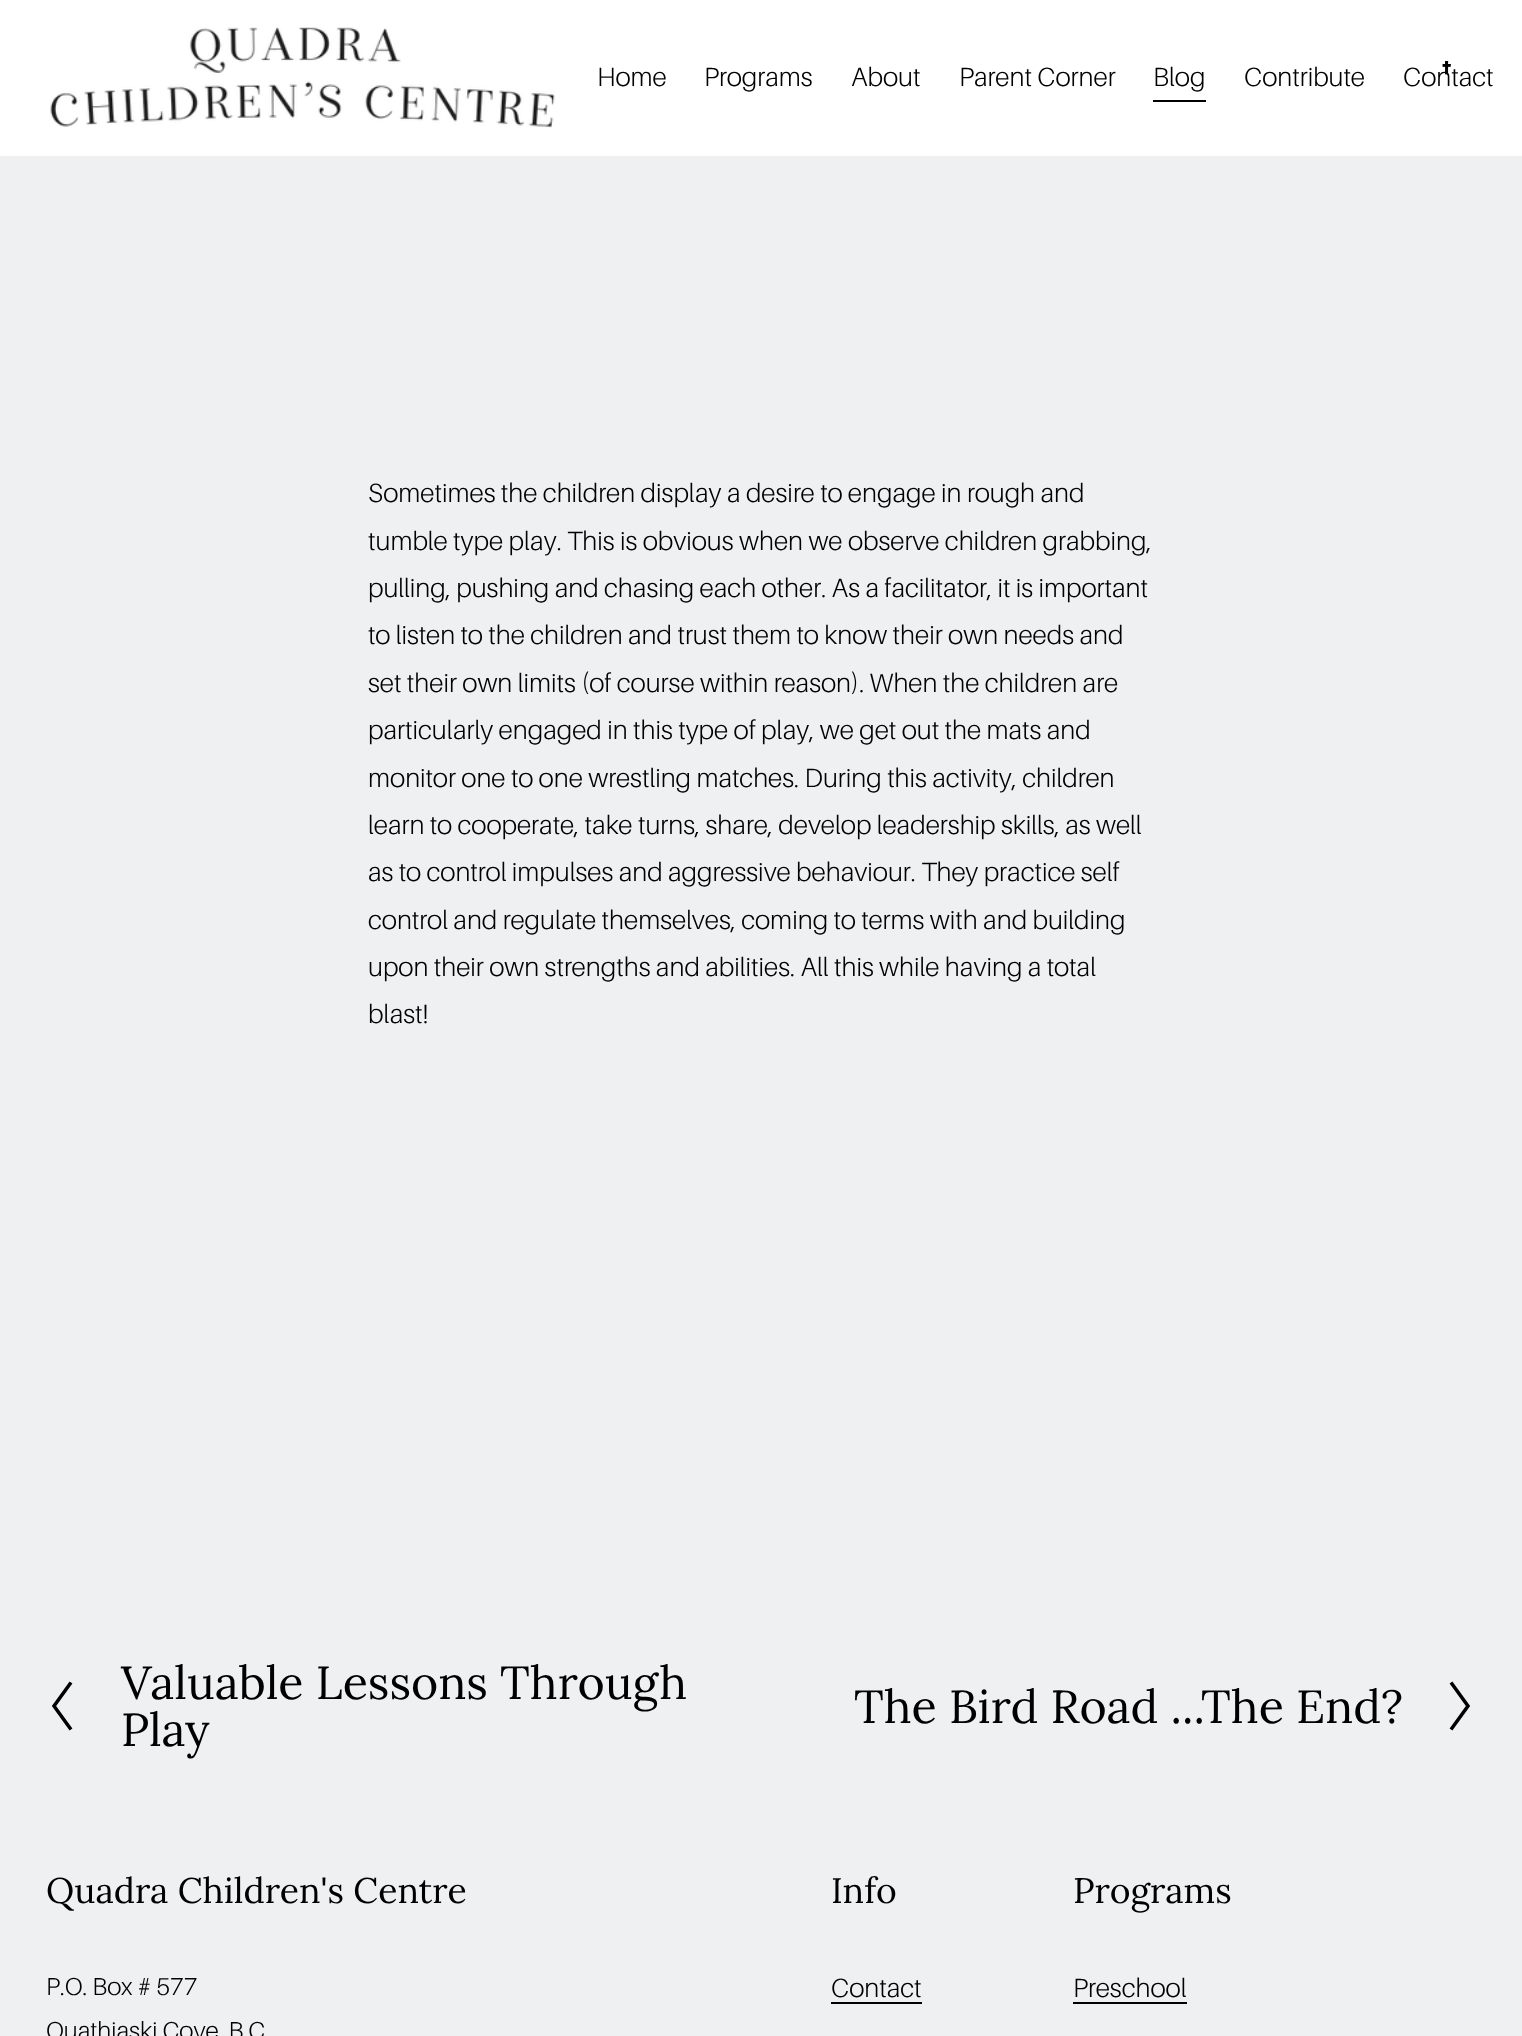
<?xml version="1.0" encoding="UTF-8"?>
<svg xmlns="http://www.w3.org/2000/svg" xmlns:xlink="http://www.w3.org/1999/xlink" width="1522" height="2036">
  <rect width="100%" height="100%" fill="#eff0f1" />
  <rect width="1522" height="156" fill="#ffffff" />
  <image x="50" y="27" width="505" height="101" xlink:href="image2.png" />
  <rect x="1153" y="100" width="53" height="2" fill="#000000" />
  <path d="M 71 1729.5 l -17 -23.5 l 17 -23.5" fill="none" stroke="#000000" stroke-width="3.5" />
  <path d="M 1451 1682.5 l 17 23.5 l -17 23.5" fill="none" stroke="#000000" stroke-width="3.5" />
  <rect x="831" y="2002" width="91" height="2" fill="#000000" />
  <rect x="1073" y="2002" width="114" height="2" fill="#000000" />
  <text x="597" y="86" style="font-family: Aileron; font-size: 26.3px; font-weight: 300; fill: #000000">Home</text>
  <text x="704" y="86" style="font-family: Aileron; font-size: 26.3px; font-weight: 300; fill: #000000">Programs</text>
  <text x="851" y="86" style="font-family: Aileron; font-size: 26.3px; font-weight: 300; fill: #000000">About</text>
  <text x="959" y="86" style="font-family: Aileron; font-size: 26.3px; font-weight: 300; fill: #000000">Parent Corner</text>
  <text x="1153" y="86" style="font-family: Aileron; font-size: 26.3px; font-weight: 300; fill: #000000">Blog</text>
  <text x="1244" y="86" style="font-family: Aileron; font-size: 26.3px; font-weight: 300; fill: #000000">Contribute</text>
  <text x="1403" y="86" style="font-family: Aileron; font-size: 26.3px; font-weight: 300; fill: #000000">Contact</text>
  <image x="1442" y="61" width="9" height="14" xlink:href="image1.png" />
  <text x="368" y="502" style="font-family: Aileron; font-size: 26.3px; font-weight: 300; fill: #000000">Sometimes the children display a desire to engage in rough and</text>
  <text x="368" y="550" style="font-family: Aileron; font-size: 26.3px; font-weight: 300; fill: #000000">tumble type play. This is obvious when we observe children grabbing,</text>
  <text x="368" y="597" style="font-family: Aileron; font-size: 26.3px; font-weight: 300; fill: #000000">pulling, pushing and chasing each other. As a facilitator, it is important</text>
  <text x="368" y="644" style="font-family: Aileron; font-size: 26.3px; font-weight: 300; fill: #000000">to listen to the children and trust them to know their own needs and</text>
  <text x="368" y="692" style="font-family: Aileron; font-size: 26.3px; font-weight: 300; fill: #000000">set their own limits (of course within reason). When the children are</text>
  <text x="368" y="739" style="font-family: Aileron; font-size: 26.3px; font-weight: 300; fill: #000000">particularly engaged in this type of play, we get out the mats and</text>
  <text x="368" y="787" style="font-family: Aileron; font-size: 26.3px; font-weight: 300; fill: #000000">monitor one to one wrestling matches. During this activity, children</text>
  <text x="368" y="834" style="font-family: Aileron; font-size: 26.3px; font-weight: 300; fill: #000000">learn to cooperate, take turns, share, develop leadership skills, as well</text>
  <text x="368" y="881" style="font-family: Aileron; font-size: 26.3px; font-weight: 300; fill: #000000">as to control impulses and aggressive behaviour. They practice self</text>
  <text x="368" y="929" style="font-family: Aileron; font-size: 26.3px; font-weight: 300; fill: #000000">control and regulate themselves, coming to terms with and building</text>
  <text x="368" y="976" style="font-family: Aileron; font-size: 26.3px; font-weight: 300; fill: #000000">upon their own strengths and abilities. All this while having a total</text>
  <text x="368" y="1023" style="font-family: Aileron; font-size: 26.3px; font-weight: 300; fill: #000000">blast!</text>
  <text x="121" y="1699" style="font-family: Lora; font-size: 46.5px; fill: #000000">Valuable Lessons Through</text>
  <text x="121" y="1746" style="font-family: Lora; font-size: 46.5px; fill: #000000">Play</text>
  <text x="854" y="1723" style="font-family: Lora; font-size: 46.5px; fill: #000000">The Bird Road ...The End?</text>
  <text x="46" y="1903" style="font-family: Lora; font-size: 35.5px; fill: #000000">Quadra Children's Centre</text>
  <text x="46" y="1995" style="font-family: Aileron; font-size: 24.5px; font-weight: 300; fill: #000000">P.O. Box # 577</text>
  <text x="46" y="2039" style="font-family: Aileron; font-size: 24.5px; font-weight: 300; fill: #000000">Quathiaski Cove, B.C</text>
  <text x="831" y="1903" style="font-family: Lora; font-size: 35.5px; fill: #000000">Info</text>
  <text x="831" y="1997" style="font-family: Aileron; font-size: 26.3px; font-weight: 300; fill: #000000">Contact</text>
  <text x="1073" y="1903" style="font-family: Lora; font-size: 35.5px; fill: #000000">Programs</text>
  <text x="1073" y="1997" style="font-family: Aileron; font-size: 26.3px; font-weight: 300; fill: #000000">Preschool</text>
</svg>
